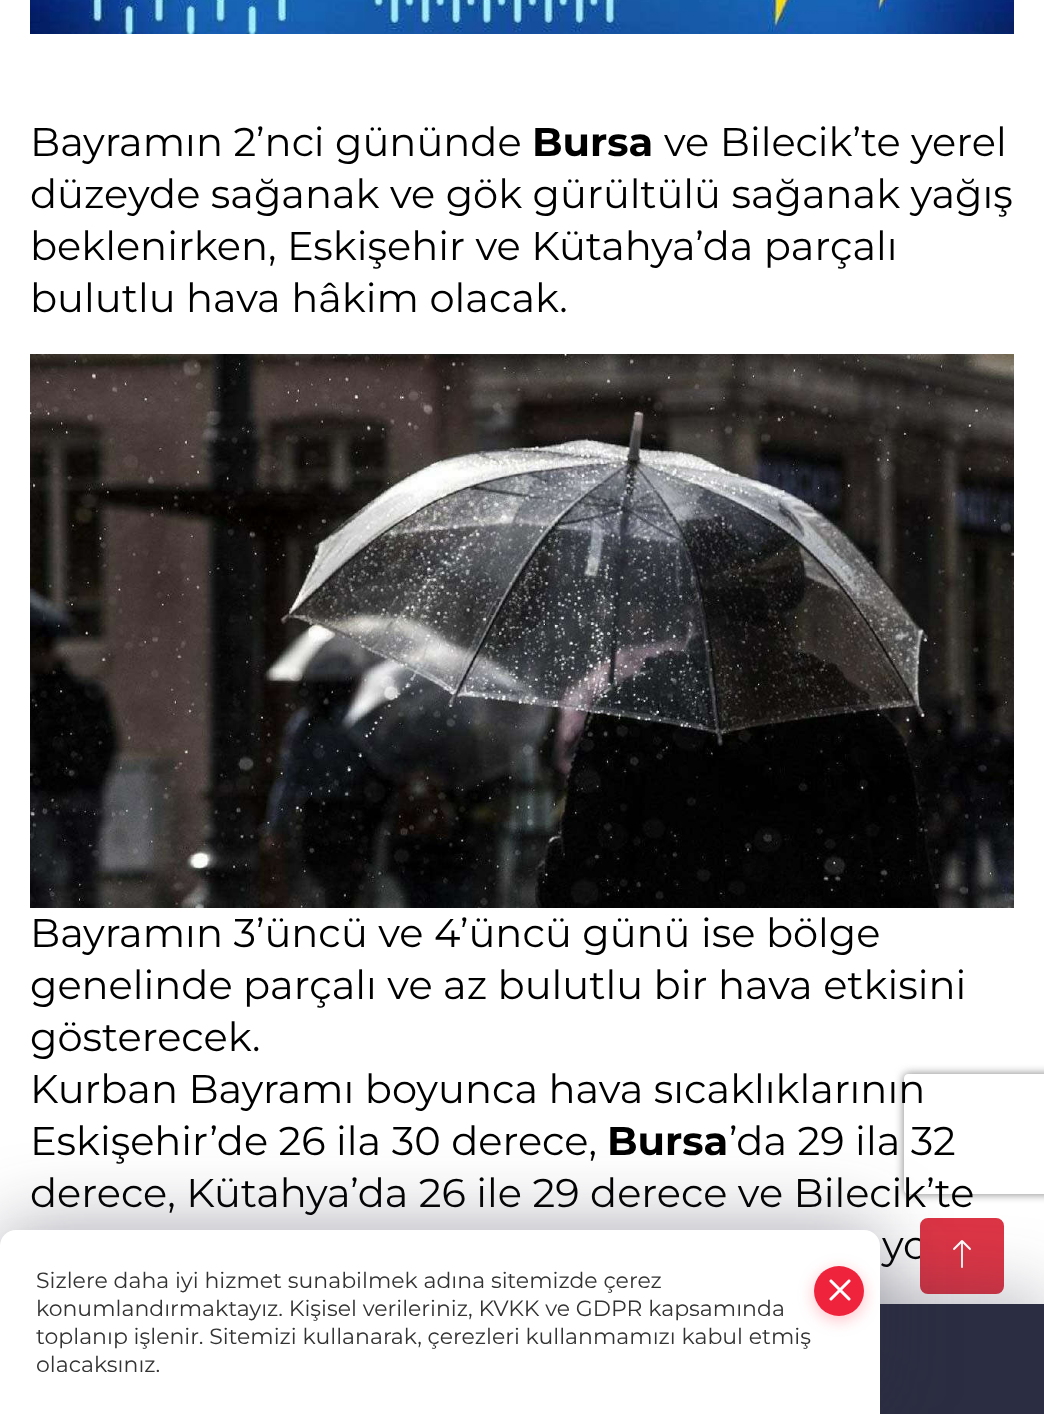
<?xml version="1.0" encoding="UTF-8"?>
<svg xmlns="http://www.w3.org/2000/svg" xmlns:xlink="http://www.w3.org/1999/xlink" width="1044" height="1414">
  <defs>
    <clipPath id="clip1"><path d="M 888 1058 h 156 v 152 h -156 z m 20 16 h 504 c 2 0 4 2 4 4 v 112 c 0 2 -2 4 -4 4 h -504 c -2 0 -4 -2 -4 -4 v -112 c 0 -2 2 -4 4 -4 z" clip-rule="evenodd" /></clipPath>
  </defs>
  <rect width="100%" height="100%" fill="#ffffff" />
  <image x="30" y="0" width="984" height="34" xlink:href="image1.png" />
  <image x="30" y="354" width="984" height="554" xlink:href="image2.png" />
  <g clip-path="url(#clip1)">
    <rect x="904" y="1074" width="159" height="120" rx="4" fill="#808080" filter="blur(5px)" />
  </g>
  <text x="30" y="156" style="font-family: Montserrat; font-size: 40px; fill: #000000">Bayramın 2’nci gününde</text>
  <text x="532" y="156" style="font-family: Montserrat; font-size: 40px; font-weight: bold; fill: #000000">Bursa</text>
  <text x="664" y="156" style="font-family: Montserrat; font-size: 40px; fill: #000000">ve Bilecik’te yerel</text>
  <text x="30" y="208" style="font-family: Montserrat; font-size: 40px; fill: #000000">düzeyde sağanak ve gök gürültülü sağanak yağış</text>
  <text x="30" y="260" style="font-family: Montserrat; font-size: 40px; fill: #000000">beklenirken, Eskişehir ve Kütahya’da parçalı</text>
  <text x="30" y="312" style="font-family: Montserrat; font-size: 40px; fill: #000000">bulutlu hava hâkim olacak.</text>
  <text x="30" y="947" style="font-family: Montserrat; font-size: 40px; fill: #000000">Bayramın 3’üncü ve 4’üncü günü ise bölge</text>
  <text x="30" y="999" style="font-family: Montserrat; font-size: 40px; fill: #000000">genelinde parçalı ve az bulutlu bir hava etkisini</text>
  <text x="30" y="1051" style="font-family: Montserrat; font-size: 40px; fill: #000000">gösterecek.</text>
  <text x="30" y="1103" style="font-family: Montserrat; font-size: 40px; fill: #000000">Kurban Bayramı boyunca hava sıcaklıklarının</text>
  <text x="30" y="1155" style="font-family: Montserrat; font-size: 40px; fill: #000000">Eskişehir’de 26 ila 30 derece,</text>
  <text x="607" y="1155" style="font-family: Montserrat; font-size: 40px; font-weight: bold; fill: #000000">Bursa</text>
  <text x="729" y="1155" style="font-family: Montserrat; font-size: 40px; fill: #000000">’da 29 ila 32</text>
  <text x="30" y="1207" style="font-family: Montserrat; font-size: 40px; fill: #000000">derece, Kütahya’da 26 ile 29 derece ve Bilecik’te</text>
  <text x="882" y="1259" style="font-family: Montserrat; font-size: 40px; fill: #000000">yo</text>
  <rect x="921" y="1219" width="82" height="74" rx="7" fill="#dc3545" stroke="#dc3545" stroke-width="2" />
  <image x="953" y="1240" width="18" height="28" xlink:href="image3.png" />
  <rect y="1298" width="1044" height="110" fill="#2b2d42" fill-opacity="0.36" filter="blur(38px)" />
  <rect x="880" y="1304" width="164" height="110" fill="#2b2d42" />
  <rect y="1224" width="880" height="184" rx="16" fill="#2b2d42" fill-opacity="0.36" filter="blur(38px)" />
  <path d="M 16 1230 h 848 c 9 0 16 7 16 16 v 168 h -880 v -168 c 0 -9 7 -16 16 -16 z" fill="#ffffff" />
  <text x="36" y="1288" style="font-family: Montserrat; font-size: 22px; fill: #333333">Sizlere daha iyi hizmet sunabilmek adına sitemizde çerez</text>
  <rect x="814" y="1270" width="50" height="50" rx="25" fill="#ff566a" fill-opacity="0.38" filter="blur(8px)" />
  <circle cx="839" cy="1291" r="25" fill="#ef233c" />
  <image x="829" y="1279" width="22" height="22" xlink:href="image4.png" />
  <text x="36" y="1316" style="font-family: Montserrat; font-size: 22px; fill: #333333">konumlandırmaktayız. Kişisel verileriniz, KVKK ve GDPR kapsamında</text>
  <text x="36" y="1344" style="font-family: Montserrat; font-size: 22px; fill: #333333">toplanıp işlenir. Sitemizi kullanarak, çerezleri kullanmamızı kabul etmiş</text>
  <text x="36" y="1372" style="font-family: Montserrat; font-size: 22px; fill: #333333">olacaksınız.</text>
</svg>
